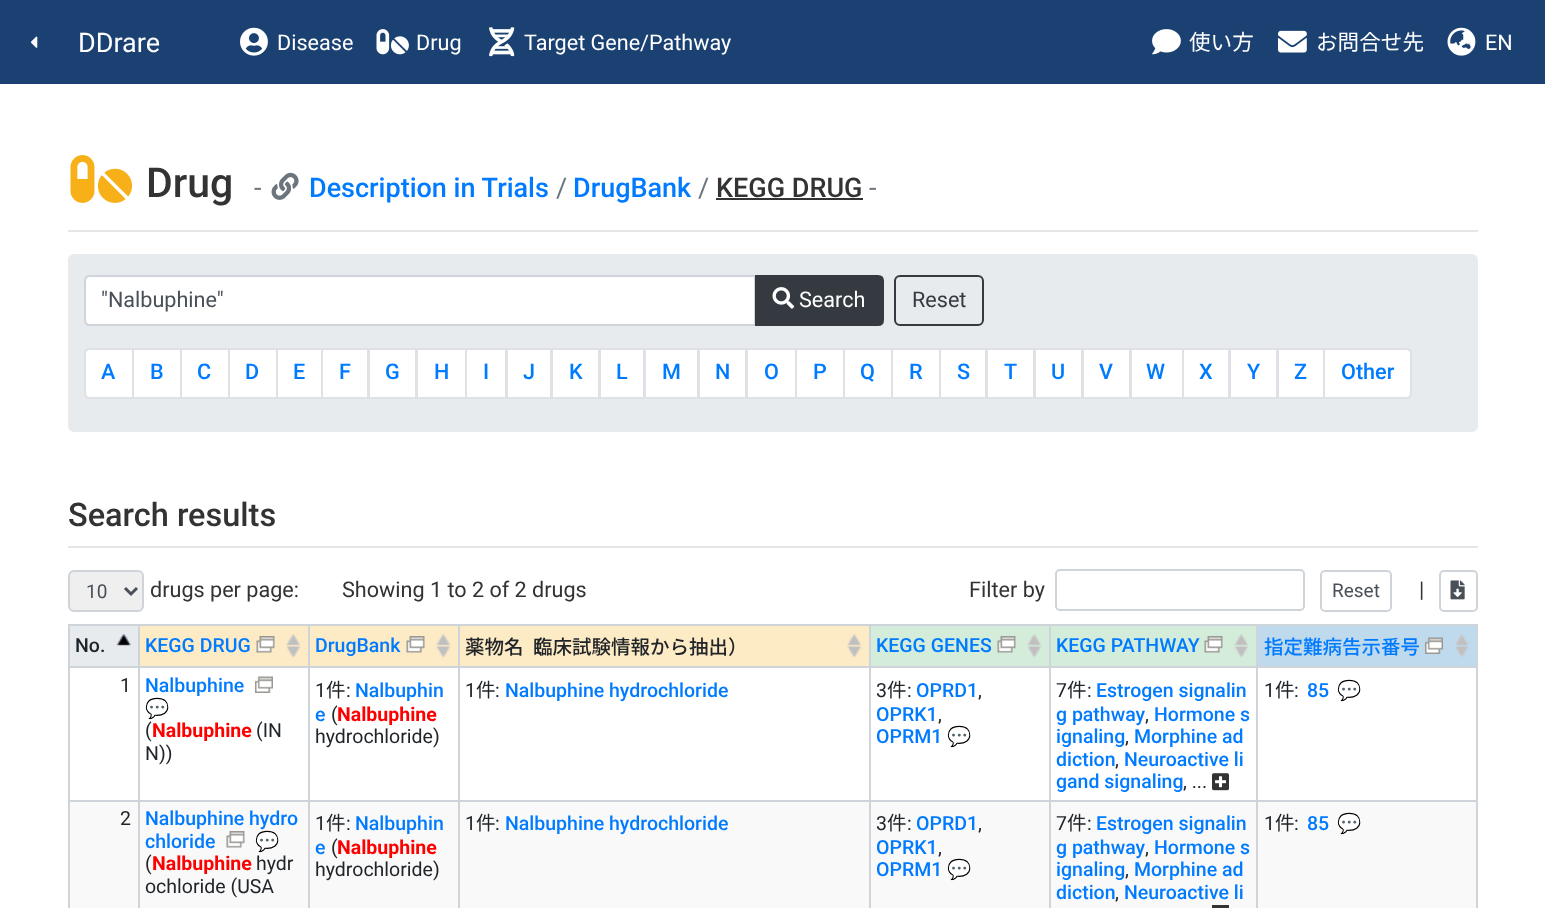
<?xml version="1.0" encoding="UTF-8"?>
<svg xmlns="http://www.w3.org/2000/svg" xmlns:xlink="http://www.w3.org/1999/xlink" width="1545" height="908">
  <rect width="100%" height="100%" fill="#ffffff" />
  <rect width="1545" height="84" fill="#1a4172" />
  <image x="30" y="36" width="8" height="12" xlink:href="image1.png" />
  <image x="240" y="27" width="28" height="29" xlink:href="image2.png" />
  <image x="376" y="29" width="33" height="26" xlink:href="image3.png" />
  <image x="489" y="27" width="26" height="30" xlink:href="image4.png" />
  <image x="1152" y="29" width="29" height="26" xlink:href="image5.png" />
  <image x="1278" y="30" width="29" height="23" xlink:href="image6.png" />
  <image x="1447" y="27" width="29" height="29" xlink:href="image7.png" />
  <image x="70" y="155" width="62" height="48" xlink:href="image8.png" />
  <image x="271" y="172" width="28" height="28" xlink:href="image9.png" />
  <rect x="716" y="198" width="147" height="2" fill="#333333" />
  <rect x="68" y="230" width="1410" height="2" fill="#e6e6e6" />
  <rect x="68" y="254" width="1410" height="178" rx="6" fill="#e7ebed" />
  <path d="M 90 276 h 665 v 49 h -665 c -3 0 -5 -2 -5 -5 v -39 c 0 -3 2 -5 5 -5 z" fill="#ffffff" stroke="#ced4da" stroke-width="2" />
  <path d="M 756 276 h 122 c 3 0 5 2 5 5 v 39 c 0 3 -2 5 -5 5 h -122 z" fill="#343a40" stroke="#343a40" stroke-width="2" />
  <image x="772" y="287" width="23" height="22" xlink:href="image10.png" />
  <rect x="895" y="276" width="88" height="49" rx="5" fill="none" stroke="#343a40" stroke-width="2" />
  <path d="M 90 349 h 43 v 49 h -43 c -3 0 -5 -2 -5 -5 v -39 c 0 -3 2 -5 5 -5 z" fill="#ffffff" stroke="#dee2e6" stroke-width="2" />
  <rect x="133" y="349" width="48" height="49" fill="#ffffff" stroke="#dee2e6" stroke-width="2" />
  <rect x="181" y="349" width="48" height="49" fill="#ffffff" stroke="#dee2e6" stroke-width="2" />
  <rect x="229" y="349" width="48" height="49" fill="#ffffff" stroke="#dee2e6" stroke-width="2" />
  <rect x="277" y="349" width="45" height="49" fill="#ffffff" stroke="#dee2e6" stroke-width="2" />
  <rect x="322" y="349" width="46" height="49" fill="#ffffff" stroke="#dee2e6" stroke-width="2" />
  <rect x="369" y="349" width="47" height="49" fill="#ffffff" stroke="#dee2e6" stroke-width="2" />
  <rect x="417" y="349" width="49" height="49" fill="#ffffff" stroke="#dee2e6" stroke-width="2" />
  <rect x="466" y="349" width="40" height="49" fill="#ffffff" stroke="#dee2e6" stroke-width="2" />
  <rect x="507" y="349" width="44" height="49" fill="#ffffff" stroke="#dee2e6" stroke-width="2" />
  <rect x="552" y="349" width="47" height="49" fill="#ffffff" stroke="#dee2e6" stroke-width="2" />
  <rect x="600" y="349" width="44" height="49" fill="#ffffff" stroke="#dee2e6" stroke-width="2" />
  <rect x="645" y="349" width="53" height="49" fill="#ffffff" stroke="#dee2e6" stroke-width="2" />
  <rect x="699" y="349" width="47" height="49" fill="#ffffff" stroke="#dee2e6" stroke-width="2" />
  <rect x="747" y="349" width="49" height="49" fill="#ffffff" stroke="#dee2e6" stroke-width="2" />
  <rect x="796" y="349" width="48" height="49" fill="#ffffff" stroke="#dee2e6" stroke-width="2" />
  <rect x="844" y="349" width="48" height="49" fill="#ffffff" stroke="#dee2e6" stroke-width="2" />
  <rect x="892" y="349" width="48" height="49" fill="#ffffff" stroke="#dee2e6" stroke-width="2" />
  <rect x="940" y="349" width="46" height="49" fill="#ffffff" stroke="#dee2e6" stroke-width="2" />
  <rect x="987" y="349" width="47" height="49" fill="#ffffff" stroke="#dee2e6" stroke-width="2" />
  <rect x="1035" y="349" width="47" height="49" fill="#ffffff" stroke="#dee2e6" stroke-width="2" />
  <rect x="1083" y="349" width="47" height="49" fill="#ffffff" stroke="#dee2e6" stroke-width="2" />
  <rect x="1131" y="349" width="52" height="49" fill="#ffffff" stroke="#dee2e6" stroke-width="2" />
  <rect x="1183" y="349" width="46" height="49" fill="#ffffff" stroke="#dee2e6" stroke-width="2" />
  <rect x="1230" y="349" width="47" height="49" fill="#ffffff" stroke="#dee2e6" stroke-width="2" />
  <rect x="1278" y="349" width="46" height="49" fill="#ffffff" stroke="#dee2e6" stroke-width="2" />
  <path d="M 1324 349 h 82 c 3 0 5 2 5 5 v 39 c 0 3 -2 5 -5 5 h -82 z" fill="#ffffff" stroke="#dee2e6" stroke-width="2" />
  <rect x="68" y="546" width="1410" height="2" fill="#e6e6e6" />
  <rect x="69" y="571" width="74" height="40" rx="5" fill="#efefef" stroke="#ced4da" stroke-width="2" />
  <path d="M 125 588 l 6 6 l 6 -6" fill="none" stroke="#495057" stroke-width="3" />
  <rect x="1056" y="570" width="248" height="40" rx="4" fill="none" stroke="#ced4da" stroke-width="2" />
  <rect x="1321" y="571" width="70" height="40" rx="4" fill="none" stroke="#ced4da" stroke-width="2" />
  <rect x="1440" y="571" width="37" height="40" rx="4" fill="none" stroke="#ced4da" stroke-width="2" />
  <image x="1450" y="580" width="15" height="20" xlink:href="image11.png" />
  <rect x="70" y="626" width="68" height="40" fill="#e7ebed" />
  <image x="116" y="634" width="15" height="12" xlink:href="image12.png" />
  <rect x="1256" y="624" width="222" height="2" fill="#ced4da" />
  <rect x="1256" y="666" width="222" height="2" fill="#ced4da" />
  <rect x="1256" y="800" width="222" height="2" fill="#ced4da" />
  <rect x="70" y="802" width="1406" height="106" fill="#f9f9f9" />
  <rect x="1256" y="800" width="2" height="108" fill="#ced4da" />
  <rect x="1049" y="800" width="208" height="2" fill="#ced4da" />
  <rect x="1256" y="666" width="2" height="135" fill="#ced4da" />
  <rect x="1049" y="666" width="208" height="2" fill="#ced4da" />
  <rect x="1256" y="624" width="2" height="44" fill="#ced4da" />
  <rect x="1049" y="624" width="208" height="2" fill="#ced4da" />
  <rect x="1049" y="800" width="2" height="108" fill="#ced4da" />
  <rect x="869" y="800" width="181" height="2" fill="#ced4da" />
  <rect x="1049" y="666" width="2" height="135" fill="#ced4da" />
  <rect x="869" y="666" width="181" height="2" fill="#ced4da" />
  <rect x="1049" y="624" width="2" height="44" fill="#ced4da" />
  <rect x="869" y="624" width="181" height="2" fill="#ced4da" />
  <rect x="869" y="800" width="2" height="108" fill="#ced4da" />
  <rect x="458" y="800" width="412" height="2" fill="#ced4da" />
  <rect x="869" y="666" width="2" height="135" fill="#ced4da" />
  <rect x="458" y="666" width="412" height="2" fill="#ced4da" />
  <rect x="869" y="624" width="2" height="44" fill="#ced4da" />
  <rect x="458" y="624" width="412" height="2" fill="#ced4da" />
  <rect x="458" y="800" width="2" height="108" fill="#ced4da" />
  <rect x="308" y="800" width="151" height="2" fill="#ced4da" />
  <rect x="458" y="666" width="2" height="135" fill="#ced4da" />
  <rect x="308" y="666" width="151" height="2" fill="#ced4da" />
  <rect x="458" y="624" width="2" height="44" fill="#ced4da" />
  <rect x="308" y="624" width="151" height="2" fill="#ced4da" />
  <rect x="308" y="800" width="2" height="108" fill="#ced4da" />
  <rect x="138" y="800" width="171" height="2" fill="#ced4da" />
  <rect x="308" y="666" width="2" height="135" fill="#ced4da" />
  <rect x="138" y="666" width="171" height="2" fill="#ced4da" />
  <rect x="308" y="624" width="2" height="44" fill="#ced4da" />
  <rect x="138" y="624" width="171" height="2" fill="#ced4da" />
  <rect x="138" y="800" width="2" height="108" fill="#ced4da" />
  <rect x="68" y="800" width="72" height="2" fill="#ced4da" />
  <rect x="138" y="666" width="2" height="135" fill="#ced4da" />
  <rect x="68" y="666" width="72" height="2" fill="#ced4da" />
  <rect x="138" y="624" width="2" height="44" fill="#ced4da" />
  <rect x="68" y="624" width="72" height="2" fill="#ced4da" />
  <rect x="68" y="800" width="2" height="108" fill="#ced4da" />
  <rect x="68" y="666" width="2" height="135" fill="#ced4da" />
  <rect x="68" y="624" width="2" height="44" fill="#ced4da" />
  <rect x="140" y="626" width="168" height="40" fill="#fdebc5" />
  <image x="286" y="634" width="15" height="24" xlink:href="image13.png" />
  <image x="256" y="636" width="19" height="17" xlink:href="image14.png" />
  <rect x="310" y="626" width="148" height="40" fill="#fdebc5" />
  <image x="436" y="634" width="15" height="24" xlink:href="image13.png" />
  <image x="406" y="636" width="19" height="17" xlink:href="image15.png" />
  <rect x="460" y="626" width="409" height="40" fill="#fdebc5" />
  <image x="847" y="634" width="15" height="24" xlink:href="image16.png" />
  <rect x="871" y="626" width="178" height="40" fill="#d4edda" />
  <image x="1027" y="634" width="15" height="24" xlink:href="image17.png" />
  <image x="997" y="636" width="19" height="17" xlink:href="image18.png" />
  <rect x="1051" y="626" width="205" height="40" fill="#d4edda" />
  <image x="1234" y="634" width="15" height="24" xlink:href="image19.png" />
  <image x="1204" y="636" width="19" height="17" xlink:href="image20.png" />
  <rect x="1258" y="626" width="218" height="40" fill="#bfd9ed" />
  <image x="1455" y="634" width="14" height="24" xlink:href="image21.png" />
  <rect x="1476" y="800" width="2" height="108" fill="#ced4da" />
  <rect x="1476" y="666" width="2" height="135" fill="#ced4da" />
  <rect x="1476" y="624" width="2" height="44" fill="#ced4da" />
  <image x="1425" y="637" width="18" height="17" xlink:href="image22.png" />
  <image x="255" y="676" width="18" height="17" xlink:href="image23.png" />
  <image x="1212" y="773" width="17" height="18" xlink:href="image24.png" />
  <image x="226" y="831" width="19" height="17" xlink:href="image25.png" />
  <rect x="1212" y="905" width="17" height="3" fill="#333333" />
  <text x="78" y="52" style="font-family: Roboto; font-size: 27px; fill: #ffffff">DDrare</text>
  <text x="277" y="50" style="font-family: Roboto; font-size: 21.6px; fill: #ffffff">Disease</text>
  <text x="416" y="50" style="font-family: Roboto; font-size: 21.6px; fill: #ffffff">Drug</text>
  <text x="524" y="50" style="font-family: Roboto; font-size: 21.6px; fill: #ffffff">Target Gene/Pathway</text>
  <text x="1189" y="50" style="font-family: Noto Sans JP; font-size: 21.6px; fill: #ffffff">使い方</text>
  <text x="1316" y="50" style="font-family: Noto Sans JP; font-size: 21.6px; fill: #ffffff">お問合せ先</text>
  <text x="1485" y="50" style="font-family: Roboto; font-size: 21.6px; fill: #ffffff">EN</text>
  <text x="146" y="197" style="font-family: Roboto; font-size: 41px; font-weight: 500; fill: #333333">Drug</text>
  <text x="254" y="197" style="font-family: Roboto; font-size: 27px; fill: #6c757d">-</text>
  <text x="309" y="197" style="font-family: Roboto; font-size: 27px; font-weight: 500; fill: #007bff">Description in Trials</text>
  <text x="556" y="197" style="font-family: Roboto; font-size: 27px; fill: #6c757d">/</text>
  <text x="573" y="197" style="font-family: Roboto; font-size: 27px; font-weight: 500; fill: #007bff">DrugBank</text>
  <text x="698" y="197" style="font-family: Roboto; font-size: 27px; fill: #6c757d">/</text>
  <text x="716" y="197" style="font-family: Roboto; font-size: 27px; font-weight: 500; fill: #333333">KEGG DRUG</text>
  <text x="869" y="197" style="font-family: Roboto; font-size: 27px; fill: #6c757d">-</text>
  <text x="101" y="307" style="font-family: Roboto; font-size: 21.6px; fill: #495057">"Nalbuphine"</text>
  <text x="799" y="307" style="font-family: Roboto; font-size: 21.6px; fill: #ffffff">Search</text>
  <text x="912" y="307" style="font-family: Roboto; font-size: 21.6px; fill: #343a40">Reset</text>
  <text x="101" y="379" style="font-family: Roboto; font-size: 21.6px; font-weight: 500; fill: #007bff">A</text>
  <text x="150" y="379" style="font-family: Roboto; font-size: 21.6px; font-weight: 500; fill: #007bff">B</text>
  <text x="197" y="379" style="font-family: Roboto; font-size: 21.6px; font-weight: 500; fill: #007bff">C</text>
  <text x="245" y="379" style="font-family: Roboto; font-size: 21.6px; font-weight: 500; fill: #007bff">D</text>
  <text x="293" y="379" style="font-family: Roboto; font-size: 21.6px; font-weight: 500; fill: #007bff">E</text>
  <text x="339" y="379" style="font-family: Roboto; font-size: 21.6px; font-weight: 500; fill: #007bff">F</text>
  <text x="385" y="379" style="font-family: Roboto; font-size: 21.6px; font-weight: 500; fill: #007bff">G</text>
  <text x="434" y="379" style="font-family: Roboto; font-size: 21.6px; font-weight: 500; fill: #007bff">H</text>
  <text x="483" y="379" style="font-family: Roboto; font-size: 21.6px; font-weight: 500; fill: #007bff">I</text>
  <text x="523" y="379" style="font-family: Roboto; font-size: 21.6px; font-weight: 500; fill: #007bff">J</text>
  <text x="569" y="379" style="font-family: Roboto; font-size: 21.6px; font-weight: 500; fill: #007bff">K</text>
  <text x="616" y="379" style="font-family: Roboto; font-size: 21.6px; font-weight: 500; fill: #007bff">L</text>
  <text x="662" y="379" style="font-family: Roboto; font-size: 21.6px; font-weight: 500; fill: #007bff">M</text>
  <text x="715" y="379" style="font-family: Roboto; font-size: 21.6px; font-weight: 500; fill: #007bff">N</text>
  <text x="764" y="379" style="font-family: Roboto; font-size: 21.6px; font-weight: 500; fill: #007bff">O</text>
  <text x="813" y="379" style="font-family: Roboto; font-size: 21.6px; font-weight: 500; fill: #007bff">P</text>
  <text x="860" y="379" style="font-family: Roboto; font-size: 21.6px; font-weight: 500; fill: #007bff">Q</text>
  <text x="909" y="379" style="font-family: Roboto; font-size: 21.6px; font-weight: 500; fill: #007bff">R</text>
  <text x="957" y="379" style="font-family: Roboto; font-size: 21.6px; font-weight: 500; fill: #007bff">S</text>
  <text x="1004" y="379" style="font-family: Roboto; font-size: 21.6px; font-weight: 500; fill: #007bff">T</text>
  <text x="1051" y="379" style="font-family: Roboto; font-size: 21.6px; font-weight: 500; fill: #007bff">U</text>
  <text x="1099" y="379" style="font-family: Roboto; font-size: 21.6px; font-weight: 500; fill: #007bff">V</text>
  <text x="1146" y="379" style="font-family: Roboto; font-size: 21.6px; font-weight: 500; fill: #007bff">W</text>
  <text x="1199" y="379" style="font-family: Roboto; font-size: 21.6px; font-weight: 500; fill: #007bff">X</text>
  <text x="1247" y="379" style="font-family: Roboto; font-size: 21.6px; font-weight: 500; fill: #007bff">Y</text>
  <text x="1294" y="379" style="font-family: Roboto; font-size: 21.6px; font-weight: 500; fill: #007bff">Z</text>
  <text x="1341" y="379" style="font-family: Roboto; font-size: 21.6px; font-weight: 500; fill: #007bff">Other</text>
  <text x="68" y="526" style="font-family: Roboto; font-size: 32.5px; font-weight: 500; fill: #333333">Search results</text>
  <text x="86" y="598" style="font-family: Roboto; font-size: 19px; fill: #495057">10</text>
  <text x="150" y="597" style="font-family: Roboto; font-size: 21.6px; fill: #333333">drugs per page:</text>
  <text x="342" y="597" style="font-family: Roboto; font-size: 21.6px; fill: #333333">Showing 1 to 2 of 2 drugs</text>
  <text x="969" y="597" style="font-family: Roboto; font-size: 21.6px; fill: #333333">Filter by</text>
  <text x="1332" y="597" style="font-family: Roboto; font-size: 19px; fill: #495057">Reset</text>
  <text x="1419" y="597" style="font-family: Roboto; font-size: 21.6px; fill: #333333">|</text>
  <text x="75" y="652" style="font-family: Roboto; font-size: 19.5px; font-weight: 500; fill: #212529">No.</text>
  <text x="145" y="652" style="font-family: Roboto; font-size: 19.5px; font-weight: 500; fill: #007bff">KEGG DRUG</text>
  <text x="315" y="652" style="font-family: Roboto; font-size: 19.5px; font-weight: 500; fill: #007bff">DrugBank</text>
  <text x="465" y="654" style="font-family: Noto Sans JP; font-size: 19.5px; font-weight: 500; fill: #212529">薬物名（</text>
  <text x="533" y="654" style="font-family: Noto Sans JP; font-size: 19.5px; font-weight: 500; fill: #212529">臨床試験情報から抽出）</text>
  <text x="876" y="652" style="font-family: Roboto; font-size: 19.5px; font-weight: 500; fill: #007bff">KEGG GENES</text>
  <text x="1056" y="652" style="font-family: Roboto; font-size: 19.5px; font-weight: 500; fill: #007bff">KEGG PATHWAY</text>
  <text x="1264" y="654" style="font-family: Noto Sans JP; font-size: 19.5px; font-weight: 500; fill: #007bff">指定難病告示番号</text>
  <text x="120" y="692" style="font-family: Roboto; font-size: 19.5px; fill: #212529">1</text>
  <text x="145" y="692" style="font-family: Roboto; font-size: 19.5px; font-weight: 500; fill: #007bff">Nalbuphine</text>
  <text x="145" y="715" style="font-family: Noto Color Emoji; font-size: 19.5px; fill: #212529">💬</text>
  <text x="145" y="737" style="font-family: Roboto; font-size: 19.5px; fill: #212529">(</text>
  <text x="152" y="737" style="font-family: Roboto; font-size: 19.5px; font-weight: bold; fill: #ff0000">Nalbuphine</text>
  <text x="256" y="737" style="font-family: Roboto; font-size: 19.5px; fill: #212529">(IN</text>
  <text x="145" y="760" style="font-family: Roboto; font-size: 19.5px; fill: #212529">N))</text>
  <text x="315" y="697" style="font-family: Roboto; font-size: 19.5px; fill: #212529">1</text>
  <text x="326" y="697" style="font-family: Noto Sans JP; font-size: 19.5px; fill: #212529">件</text>
  <text x="346" y="697" style="font-family: Roboto; font-size: 19.5px; fill: #212529">:</text>
  <text x="355" y="697" style="font-family: Roboto; font-size: 19.5px; font-weight: 500; fill: #007bff">Nalbuphin</text>
  <text x="315" y="721" style="font-family: Roboto; font-size: 19.5px; font-weight: 500; fill: #007bff">e</text>
  <text x="331" y="721" style="font-family: Roboto; font-size: 19.5px; fill: #212529">(</text>
  <text x="337" y="721" style="font-family: Roboto; font-size: 19.5px; font-weight: bold; fill: #ff0000">Nalbuphine</text>
  <text x="315" y="743" style="font-family: Roboto; font-size: 19.5px; fill: #212529">hydrochloride)</text>
  <text x="465" y="697" style="font-family: Roboto; font-size: 19.5px; fill: #212529">1</text>
  <text x="476" y="697" style="font-family: Noto Sans JP; font-size: 19.5px; fill: #212529">件</text>
  <text x="495" y="697" style="font-family: Roboto; font-size: 19.5px; fill: #212529">:</text>
  <text x="505" y="697" style="font-family: Roboto; font-size: 19.5px; font-weight: 500; fill: #007bff">Nalbuphine hydrochloride</text>
  <text x="876" y="697" style="font-family: Roboto; font-size: 19.5px; fill: #212529">3</text>
  <text x="887" y="697" style="font-family: Noto Sans JP; font-size: 19.5px; fill: #212529">件</text>
  <text x="907" y="697" style="font-family: Roboto; font-size: 19.5px; fill: #212529">:</text>
  <text x="916" y="697" style="font-family: Roboto; font-size: 19.5px; font-weight: 500; fill: #007bff">OPRD1</text>
  <text x="978" y="697" style="font-family: Roboto; font-size: 19.5px; fill: #212529">,</text>
  <text x="876" y="721" style="font-family: Roboto; font-size: 19.5px; font-weight: 500; fill: #007bff">OPRK1</text>
  <text x="938" y="721" style="font-family: Roboto; font-size: 19.5px; fill: #212529">,</text>
  <text x="876" y="743" style="font-family: Roboto; font-size: 19.5px; font-weight: 500; fill: #007bff">OPRM1</text>
  <text x="947" y="743" style="font-family: Noto Color Emoji; font-size: 19.5px; fill: #212529">💬</text>
  <text x="1056" y="697" style="font-family: Roboto; font-size: 19.5px; fill: #212529">7</text>
  <text x="1067" y="697" style="font-family: Noto Sans JP; font-size: 19.5px; fill: #212529">件</text>
  <text x="1087" y="697" style="font-family: Roboto; font-size: 19.5px; fill: #212529">:</text>
  <text x="1096" y="697" style="font-family: Roboto; font-size: 19.5px; font-weight: 500; fill: #007bff">Estrogen signalin</text>
  <text x="1056" y="721" style="font-family: Roboto; font-size: 19.5px; font-weight: 500; fill: #007bff">g pathway</text>
  <text x="1145" y="721" style="font-family: Roboto; font-size: 19.5px; fill: #212529">,</text>
  <text x="1154" y="721" style="font-family: Roboto; font-size: 19.5px; font-weight: 500; fill: #007bff">Hormone s</text>
  <text x="1056" y="743" style="font-family: Roboto; font-size: 19.5px; font-weight: 500; fill: #007bff">ignaling</text>
  <text x="1125" y="743" style="font-family: Roboto; font-size: 19.5px; fill: #212529">,</text>
  <text x="1134" y="743" style="font-family: Roboto; font-size: 19.5px; font-weight: 500; fill: #007bff">Morphine ad</text>
  <text x="1056" y="766" style="font-family: Roboto; font-size: 19.5px; font-weight: 500; fill: #007bff">diction</text>
  <text x="1115" y="766" style="font-family: Roboto; font-size: 19.5px; fill: #212529">,</text>
  <text x="1124" y="766" style="font-family: Roboto; font-size: 19.5px; font-weight: 500; fill: #007bff">Neuroactive li</text>
  <text x="1056" y="788" style="font-family: Roboto; font-size: 19.5px; font-weight: 500; fill: #007bff">gand signaling</text>
  <text x="1183" y="788" style="font-family: Roboto; font-size: 19.5px; fill: #212529">, ...</text>
  <text x="1264" y="697" style="font-family: Roboto; font-size: 19.5px; fill: #212529">1</text>
  <text x="1275" y="697" style="font-family: Noto Sans JP; font-size: 19.5px; fill: #212529">件</text>
  <text x="1294" y="697" style="font-family: Roboto; font-size: 19.5px; fill: #212529">:</text>
  <text x="1307" y="697" style="font-family: Roboto; font-size: 19.5px; font-weight: 500; fill: #007bff">85</text>
  <text x="1337" y="697" style="font-family: Noto Color Emoji; font-size: 19.5px; fill: #212529">💬</text>
  <text x="120" y="825" style="font-family: Roboto; font-size: 19.5px; fill: #212529">2</text>
  <text x="145" y="825" style="font-family: Roboto; font-size: 19.5px; font-weight: 500; fill: #007bff">Nalbuphine hydro</text>
  <text x="145" y="848" style="font-family: Roboto; font-size: 19.5px; font-weight: 500; fill: #007bff">chloride</text>
  <text x="255" y="848" style="font-family: Noto Color Emoji; font-size: 19.5px; fill: #212529">💬</text>
  <text x="145" y="870" style="font-family: Roboto; font-size: 19.5px; fill: #212529">(</text>
  <text x="152" y="870" style="font-family: Roboto; font-size: 19.5px; font-weight: bold; fill: #ff0000">Nalbuphine</text>
  <text x="256" y="870" style="font-family: Roboto; font-size: 19.5px; fill: #212529">hydr</text>
  <text x="145" y="893" style="font-family: Roboto; font-size: 19.5px; fill: #212529">ochloride (USA</text>
  <text x="315" y="830" style="font-family: Roboto; font-size: 19.5px; fill: #212529">1</text>
  <text x="326" y="830" style="font-family: Noto Sans JP; font-size: 19.5px; fill: #212529">件</text>
  <text x="346" y="830" style="font-family: Roboto; font-size: 19.5px; fill: #212529">:</text>
  <text x="355" y="830" style="font-family: Roboto; font-size: 19.5px; font-weight: 500; fill: #007bff">Nalbuphin</text>
  <text x="315" y="854" style="font-family: Roboto; font-size: 19.5px; font-weight: 500; fill: #007bff">e</text>
  <text x="331" y="854" style="font-family: Roboto; font-size: 19.5px; fill: #212529">(</text>
  <text x="337" y="854" style="font-family: Roboto; font-size: 19.5px; font-weight: bold; fill: #ff0000">Nalbuphine</text>
  <text x="315" y="876" style="font-family: Roboto; font-size: 19.5px; fill: #212529">hydrochloride)</text>
  <text x="465" y="830" style="font-family: Roboto; font-size: 19.5px; fill: #212529">1</text>
  <text x="476" y="830" style="font-family: Noto Sans JP; font-size: 19.5px; fill: #212529">件</text>
  <text x="495" y="830" style="font-family: Roboto; font-size: 19.5px; fill: #212529">:</text>
  <text x="505" y="830" style="font-family: Roboto; font-size: 19.5px; font-weight: 500; fill: #007bff">Nalbuphine hydrochloride</text>
  <text x="876" y="830" style="font-family: Roboto; font-size: 19.5px; fill: #212529">3</text>
  <text x="887" y="830" style="font-family: Noto Sans JP; font-size: 19.5px; fill: #212529">件</text>
  <text x="907" y="830" style="font-family: Roboto; font-size: 19.5px; fill: #212529">:</text>
  <text x="916" y="830" style="font-family: Roboto; font-size: 19.5px; font-weight: 500; fill: #007bff">OPRD1</text>
  <text x="978" y="830" style="font-family: Roboto; font-size: 19.5px; fill: #212529">,</text>
  <text x="876" y="854" style="font-family: Roboto; font-size: 19.5px; font-weight: 500; fill: #007bff">OPRK1</text>
  <text x="938" y="854" style="font-family: Roboto; font-size: 19.5px; fill: #212529">,</text>
  <text x="876" y="876" style="font-family: Roboto; font-size: 19.5px; font-weight: 500; fill: #007bff">OPRM1</text>
  <text x="947" y="876" style="font-family: Noto Color Emoji; font-size: 19.5px; fill: #212529">💬</text>
  <text x="1056" y="830" style="font-family: Roboto; font-size: 19.5px; fill: #212529">7</text>
  <text x="1067" y="830" style="font-family: Noto Sans JP; font-size: 19.5px; fill: #212529">件</text>
  <text x="1087" y="830" style="font-family: Roboto; font-size: 19.5px; fill: #212529">:</text>
  <text x="1096" y="830" style="font-family: Roboto; font-size: 19.5px; font-weight: 500; fill: #007bff">Estrogen signalin</text>
  <text x="1056" y="854" style="font-family: Roboto; font-size: 19.5px; font-weight: 500; fill: #007bff">g pathway</text>
  <text x="1145" y="854" style="font-family: Roboto; font-size: 19.5px; fill: #212529">,</text>
  <text x="1154" y="854" style="font-family: Roboto; font-size: 19.5px; font-weight: 500; fill: #007bff">Hormone s</text>
  <text x="1056" y="876" style="font-family: Roboto; font-size: 19.5px; font-weight: 500; fill: #007bff">ignaling</text>
  <text x="1125" y="876" style="font-family: Roboto; font-size: 19.5px; fill: #212529">,</text>
  <text x="1134" y="876" style="font-family: Roboto; font-size: 19.5px; font-weight: 500; fill: #007bff">Morphine ad</text>
  <text x="1056" y="899" style="font-family: Roboto; font-size: 19.5px; font-weight: 500; fill: #007bff">diction</text>
  <text x="1115" y="899" style="font-family: Roboto; font-size: 19.5px; fill: #212529">,</text>
  <text x="1124" y="899" style="font-family: Roboto; font-size: 19.5px; font-weight: 500; fill: #007bff">Neuroactive li</text>
  <text x="1264" y="830" style="font-family: Roboto; font-size: 19.5px; fill: #212529">1</text>
  <text x="1275" y="830" style="font-family: Noto Sans JP; font-size: 19.5px; fill: #212529">件</text>
  <text x="1294" y="830" style="font-family: Roboto; font-size: 19.5px; fill: #212529">:</text>
  <text x="1307" y="830" style="font-family: Roboto; font-size: 19.5px; font-weight: 500; fill: #007bff">85</text>
  <text x="1337" y="830" style="font-family: Noto Color Emoji; font-size: 19.5px; fill: #212529">💬</text>
</svg>
